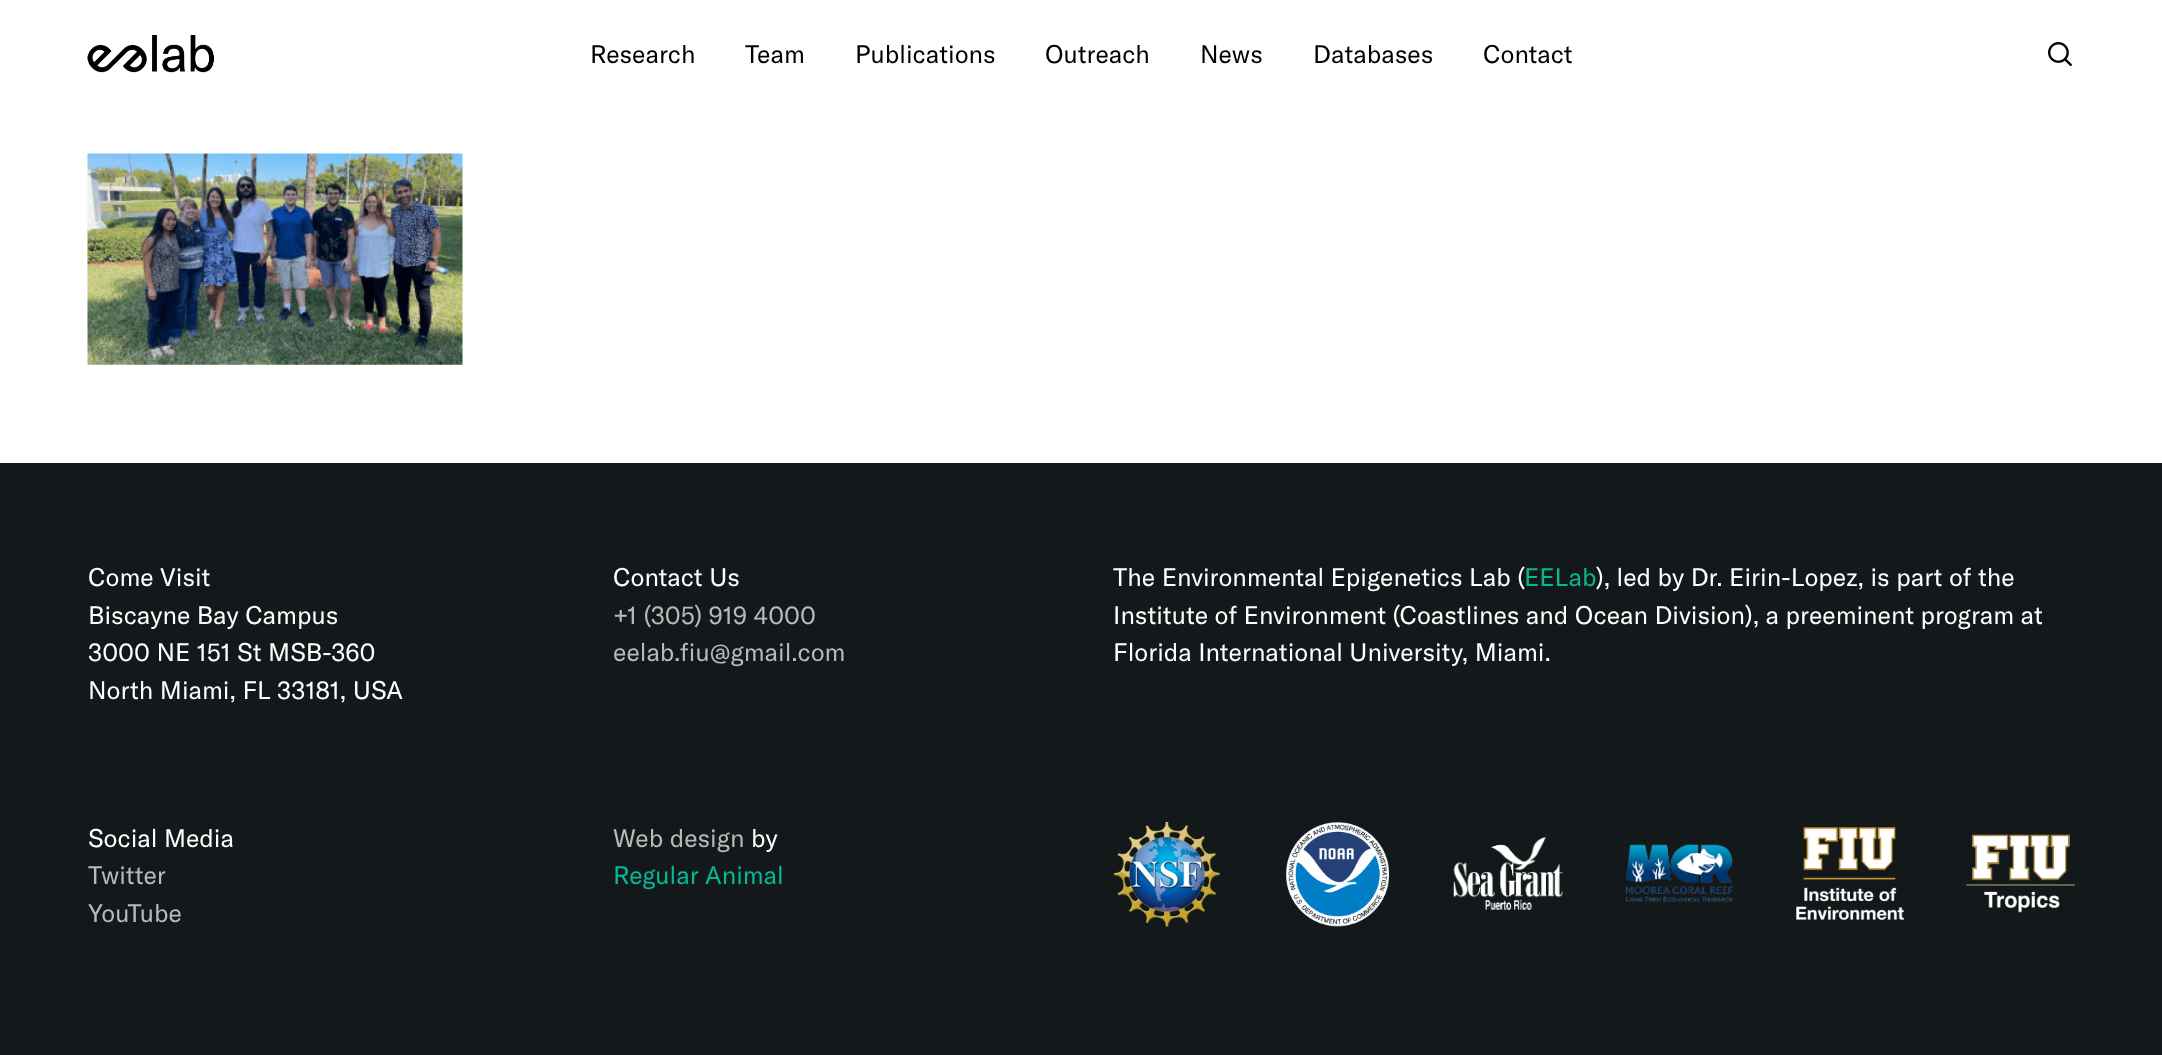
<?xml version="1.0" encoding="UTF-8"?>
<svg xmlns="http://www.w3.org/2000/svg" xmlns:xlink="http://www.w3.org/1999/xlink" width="2162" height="1055">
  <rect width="100%" height="100%" fill="#ffffff" />
  <image x="87" y="35" width="127" height="38" xlink:href="image1.png" />
  <image x="2048" y="42" width="24" height="25" xlink:href="image2.png" />
  <image x="87" y="153" width="376" height="212" xlink:href="image3.png" />
  <rect y="463" width="2162" height="592" fill="#13191a" />
  <image x="1114" y="821" width="106" height="106" xlink:href="image4.png" />
  <image x="1286" y="822" width="104" height="105" xlink:href="image5.png" />
  <image x="1453" y="837" width="110" height="73" xlink:href="image6.png" />
  <image x="1625" y="844" width="108" height="58" xlink:href="image7.png" />
  <image x="1796" y="827" width="108" height="93" xlink:href="image8.png" />
  <image x="1966" y="834" width="109" height="79" xlink:href="image9.png" />
  <text x="590" y="63" style="font-family: GT America; font-size: 25px; fill: #000000">Research</text>
  <text x="745" y="63" style="font-family: GT America; font-size: 25px; fill: #000000">Team</text>
  <text x="855" y="63" style="font-family: GT America; font-size: 25px; fill: #000000">Publications</text>
  <text x="1045" y="63" style="font-family: GT America; font-size: 25px; fill: #000000">Outreach</text>
  <text x="1200" y="63" style="font-family: GT America; font-size: 25px; fill: #000000">News</text>
  <text x="1313" y="63" style="font-family: GT America; font-size: 25px; fill: #000000">Databases</text>
  <text x="1483" y="63" style="font-family: GT America; font-size: 25px; fill: #000000">Contact</text>
  <text x="88" y="586" style="font-family: GT America; font-size: 25px; fill: #ffffff">Come Visit</text>
  <text x="88" y="624" style="font-family: GT America; font-size: 25px; fill: #ffffff">Biscayne Bay Campus</text>
  <text x="88" y="661" style="font-family: GT America; font-size: 25px; fill: #ffffff">3000 NE 151 St MSB-360</text>
  <text x="88" y="699" style="font-family: GT America; font-size: 25px; fill: #ffffff">North Miami, FL 33181, USA</text>
  <text x="613" y="586" style="font-family: GT America; font-size: 25px; fill: #ffffff">Contact Us</text>
  <text x="613" y="624" style="font-family: GT America; font-size: 25px; fill: #b8baba">+1 (305) 919 4000</text>
  <text x="613" y="661" style="font-family: GT America; font-size: 25px; fill: #b8baba">eelab.fiu@gmail.com</text>
  <text x="1113" y="586" style="font-family: GT America; font-size: 25px; fill: #ffffff">The Environmental Epigenetics Lab (</text>
  <text x="1524" y="586" style="font-family: GT America; font-size: 25px; fill: #06b994">EELab</text>
  <text x="1596" y="586" style="font-family: GT America; font-size: 25px; fill: #ffffff">), led by Dr. Eirin-Lopez, is part of the</text>
  <text x="1113" y="624" style="font-family: GT America; font-size: 25px; fill: #ffffff">Institute of Environment (Coastlines and Ocean Division), a preeminent program at</text>
  <text x="1113" y="661" style="font-family: GT America; font-size: 25px; fill: #ffffff">Florida International University, Miami.</text>
  <text x="88" y="847" style="font-family: GT America; font-size: 25px; fill: #ffffff">Social Media</text>
  <text x="88" y="884" style="font-family: GT America; font-size: 25px; fill: #b8baba">Twitter</text>
  <text x="88" y="922" style="font-family: GT America; font-size: 25px; fill: #b8baba">YouTube</text>
  <text x="613" y="847" style="font-family: GT America; font-size: 25px; fill: #b8baba">Web design</text>
  <text x="751" y="847" style="font-family: GT America; font-size: 25px; fill: #ffffff">by</text>
  <text x="613" y="884" style="font-family: GT America; font-size: 25px; fill: #06b994">Regular Animal</text>
</svg>
